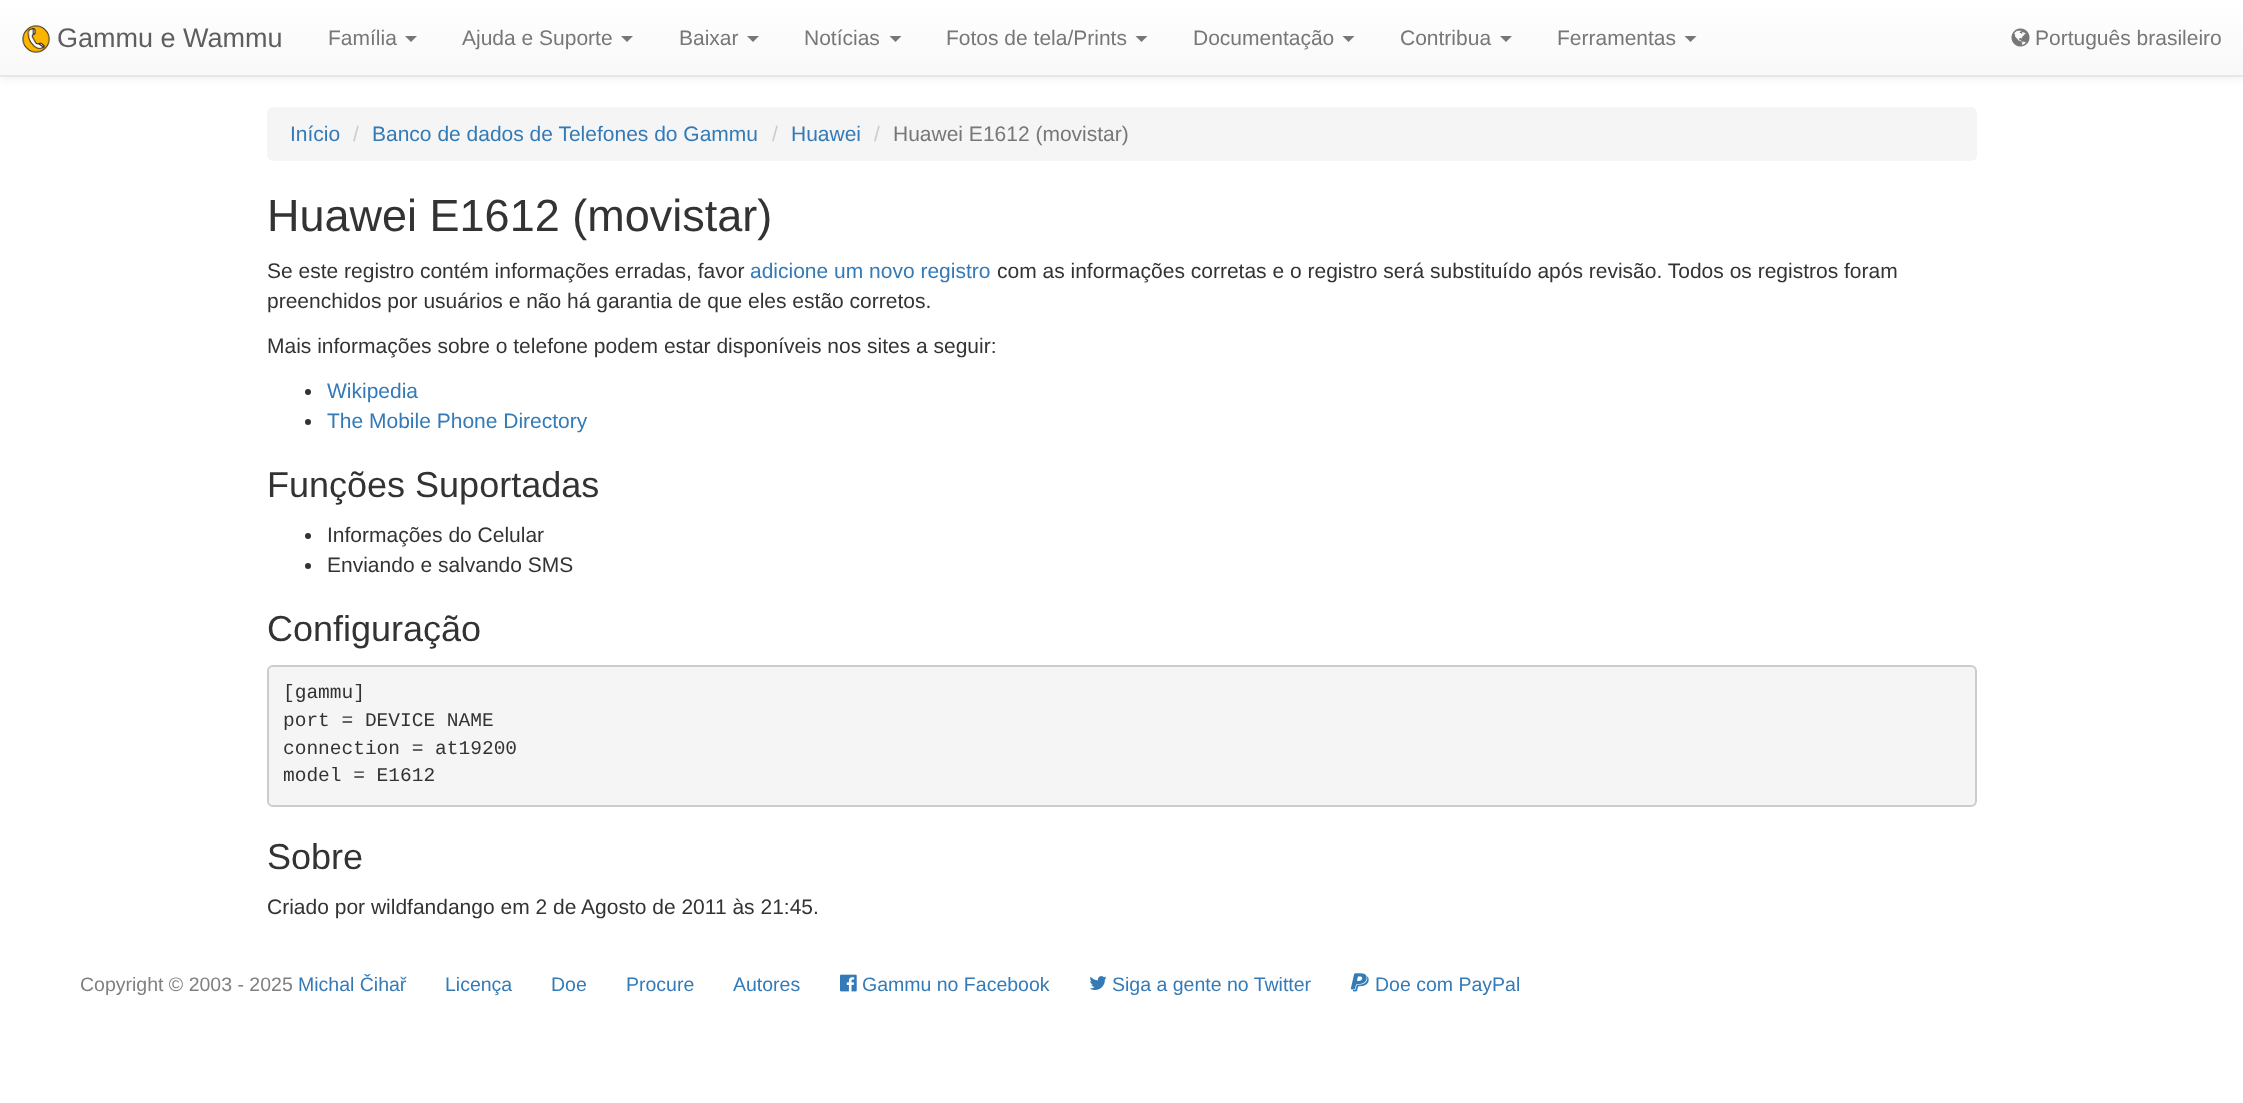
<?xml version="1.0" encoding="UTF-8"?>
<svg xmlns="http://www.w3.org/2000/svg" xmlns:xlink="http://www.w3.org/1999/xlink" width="2243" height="1103">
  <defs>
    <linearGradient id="g1" gradientUnits="userSpaceOnUse" x1="1122" y1="0" x2="1122" y2="75"><stop offset="0" stop-color="#ffffff" /><stop offset="1" stop-color="#f8f8f8" /></linearGradient>
  </defs>
  <rect width="100%" height="100%" fill="#ffffff" />
  <rect y="2" width="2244" height="76" fill="#000000" fill-opacity="0.07" filter="blur(4px)" />
  <rect width="2243" height="75" fill="url(#g1)" />
  <rect y="75" width="2243" height="2" fill="#e7e7e7" />
  <image x="22" y="25" width="28" height="28" xlink:href="image1.png" />
  <path d="M 405 36 h 12 l -6 6 z" fill="#777777" />
  <path d="M 621 36 h 12 l -6 6 z" fill="#777777" />
  <path d="M 747 36 h 12 l -6 6 z" fill="#777777" />
  <path d="M 889.5 36 h 12 l -6 6 z" fill="#777777" />
  <path d="M 1135.5 36 h 12 l -6 6 z" fill="#777777" />
  <path d="M 1342.5 36 h 12 l -6 6 z" fill="#777777" />
  <path d="M 1500 36 h 12 l -6 6 z" fill="#777777" />
  <path d="M 1684.5 36 h 12 l -6 6 z" fill="#777777" />
  <image x="2011" y="28" width="19" height="19" xlink:href="image2.png" />
  <rect x="267" y="107" width="1710" height="54" rx="6" fill="#f5f5f5" />
  <circle cx="308" cy="392" r="3" fill="#333333" />
  <circle cx="308" cy="422" r="3" fill="#333333" />
  <circle cx="308" cy="536" r="3" fill="#333333" />
  <circle cx="308" cy="566" r="3" fill="#333333" />
  <rect x="268" y="666" width="1708" height="140" rx="5" fill="#f5f5f5" stroke="#cccccc" stroke-width="2" />
  <image x="840" y="974" width="17" height="18" xlink:href="image3.png" />
  <image x="1089" y="976" width="18" height="14" xlink:href="image4.png" />
  <image x="1350" y="973" width="19" height="19" xlink:href="image5.png" />
  <text x="57" y="47" style="font-family: Liberation Sans; font-size: 27px; fill: #5e5e5e">Gammu e Wammu</text>
  <text x="328" y="45" style="font-family: Liberation Sans; font-size: 21px; fill: #777777">Família</text>
  <text x="462" y="45" style="font-family: Liberation Sans; font-size: 21px; fill: #777777">Ajuda e Suporte</text>
  <text x="679" y="45" style="font-family: Liberation Sans; font-size: 21px; fill: #777777">Baixar</text>
  <text x="804" y="45" style="font-family: Liberation Sans; font-size: 21px; fill: #777777">Notícias</text>
  <text x="946" y="45" style="font-family: Liberation Sans; font-size: 21px; fill: #777777">Fotos de tela/Prints</text>
  <text x="1193" y="45" style="font-family: Liberation Sans; font-size: 21px; fill: #777777">Documentação</text>
  <text x="1400" y="45" style="font-family: Liberation Sans; font-size: 21px; fill: #777777">Contribua</text>
  <text x="1557" y="45" style="font-family: Liberation Sans; font-size: 21px; fill: #777777">Ferramentas</text>
  <text x="2035" y="45" style="font-family: Liberation Sans; font-size: 21px; fill: #777777">Português brasileiro</text>
  <text x="290" y="141" style="font-family: Liberation Sans; font-size: 21px; fill: #337ab7">Início</text>
  <text x="353" y="141" style="font-family: Liberation Sans; font-size: 21px; fill: #cccccc">/</text>
  <text x="372" y="141" style="font-family: Liberation Sans; font-size: 21px; fill: #337ab7">Banco de dados de Telefones do Gammu</text>
  <text x="772" y="141" style="font-family: Liberation Sans; font-size: 21px; fill: #cccccc">/</text>
  <text x="791" y="141" style="font-family: Liberation Sans; font-size: 21px; fill: #337ab7">Huawei</text>
  <text x="874" y="141" style="font-family: Liberation Sans; font-size: 21px; fill: #cccccc">/</text>
  <text x="893" y="141" style="font-family: Liberation Sans; font-size: 21px; fill: #777777">Huawei E1612 (movistar)</text>
  <text x="267" y="231" style="font-family: Liberation Sans; font-size: 45px; fill: #333333">Huawei E1612 (movistar)</text>
  <text x="267" y="278" style="font-family: Liberation Sans; font-size: 21px; fill: #333333">Se este registro contém informações erradas, favor</text>
  <text x="750" y="278" style="font-family: Liberation Sans; font-size: 21px; fill: #337ab7">adicione um novo registro</text>
  <text x="997" y="278" style="font-family: Liberation Sans; font-size: 21px; fill: #333333">com as informações corretas e o registro será substituído após revisão. Todos os registros foram</text>
  <text x="267" y="308" style="font-family: Liberation Sans; font-size: 21px; fill: #333333">preenchidos por usuários e não há garantia de que eles estão corretos.</text>
  <text x="267" y="353" style="font-family: Liberation Sans; font-size: 21px; fill: #333333">Mais informações sobre o telefone podem estar disponíveis nos sites a seguir:</text>
  <text x="327" y="398" style="font-family: Liberation Sans; font-size: 21px; fill: #337ab7">Wikipedia</text>
  <text x="327" y="428" style="font-family: Liberation Sans; font-size: 21px; fill: #337ab7">The Mobile Phone Directory</text>
  <text x="267" y="497" style="font-family: Liberation Sans; font-size: 36px; fill: #333333">Funções Suportadas</text>
  <text x="327" y="542" style="font-family: Liberation Sans; font-size: 21px; fill: #333333">Informações do Celular</text>
  <text x="327" y="572" style="font-family: Liberation Sans; font-size: 21px; fill: #333333">Enviando e salvando SMS</text>
  <text x="267" y="641" style="font-family: Liberation Sans; font-size: 36px; fill: #333333">Configuração</text>
  <text x="283" y="698" style="font-family: Liberation Mono; font-size: 19.5px; fill: #333333">[gammu]</text>
  <text x="283" y="726" style="font-family: Liberation Mono; font-size: 19.5px; fill: #333333">port = DEVICE NAME</text>
  <text x="283" y="754" style="font-family: Liberation Mono; font-size: 19.5px; fill: #333333">connection = at19200</text>
  <text x="283" y="781" style="font-family: Liberation Mono; font-size: 19.5px; fill: #333333">model = E1612</text>
  <text x="267" y="869" style="font-family: Liberation Sans; font-size: 36px; fill: #333333">Sobre</text>
  <text x="267" y="914" style="font-family: Liberation Sans; font-size: 21px; fill: #333333">Criado por wildfandango em 2 de Agosto de 2011 às 21:45.</text>
  <text x="80" y="991" style="font-family: Liberation Sans; font-size: 19.5px; fill: #808080">Copyright © 2003 - 2025</text>
  <text x="298" y="991" style="font-family: Liberation Sans; font-size: 19.5px; fill: #337ab7">Michal Čihař</text>
  <text x="445" y="991" style="font-family: Liberation Sans; font-size: 19.5px; fill: #337ab7">Licença</text>
  <text x="551" y="991" style="font-family: Liberation Sans; font-size: 19.5px; fill: #337ab7">Doe</text>
  <text x="626" y="991" style="font-family: Liberation Sans; font-size: 19.5px; fill: #337ab7">Procure</text>
  <text x="733" y="991" style="font-family: Liberation Sans; font-size: 19.5px; fill: #337ab7">Autores</text>
  <text x="862" y="991" style="font-family: Liberation Sans; font-size: 19.5px; fill: #337ab7">Gammu no Facebook</text>
  <text x="1112" y="991" style="font-family: Liberation Sans; font-size: 19.5px; fill: #337ab7">Siga a gente no Twitter</text>
  <text x="1375" y="991" style="font-family: Liberation Sans; font-size: 19.5px; fill: #337ab7">Doe com PayPal</text>
</svg>
